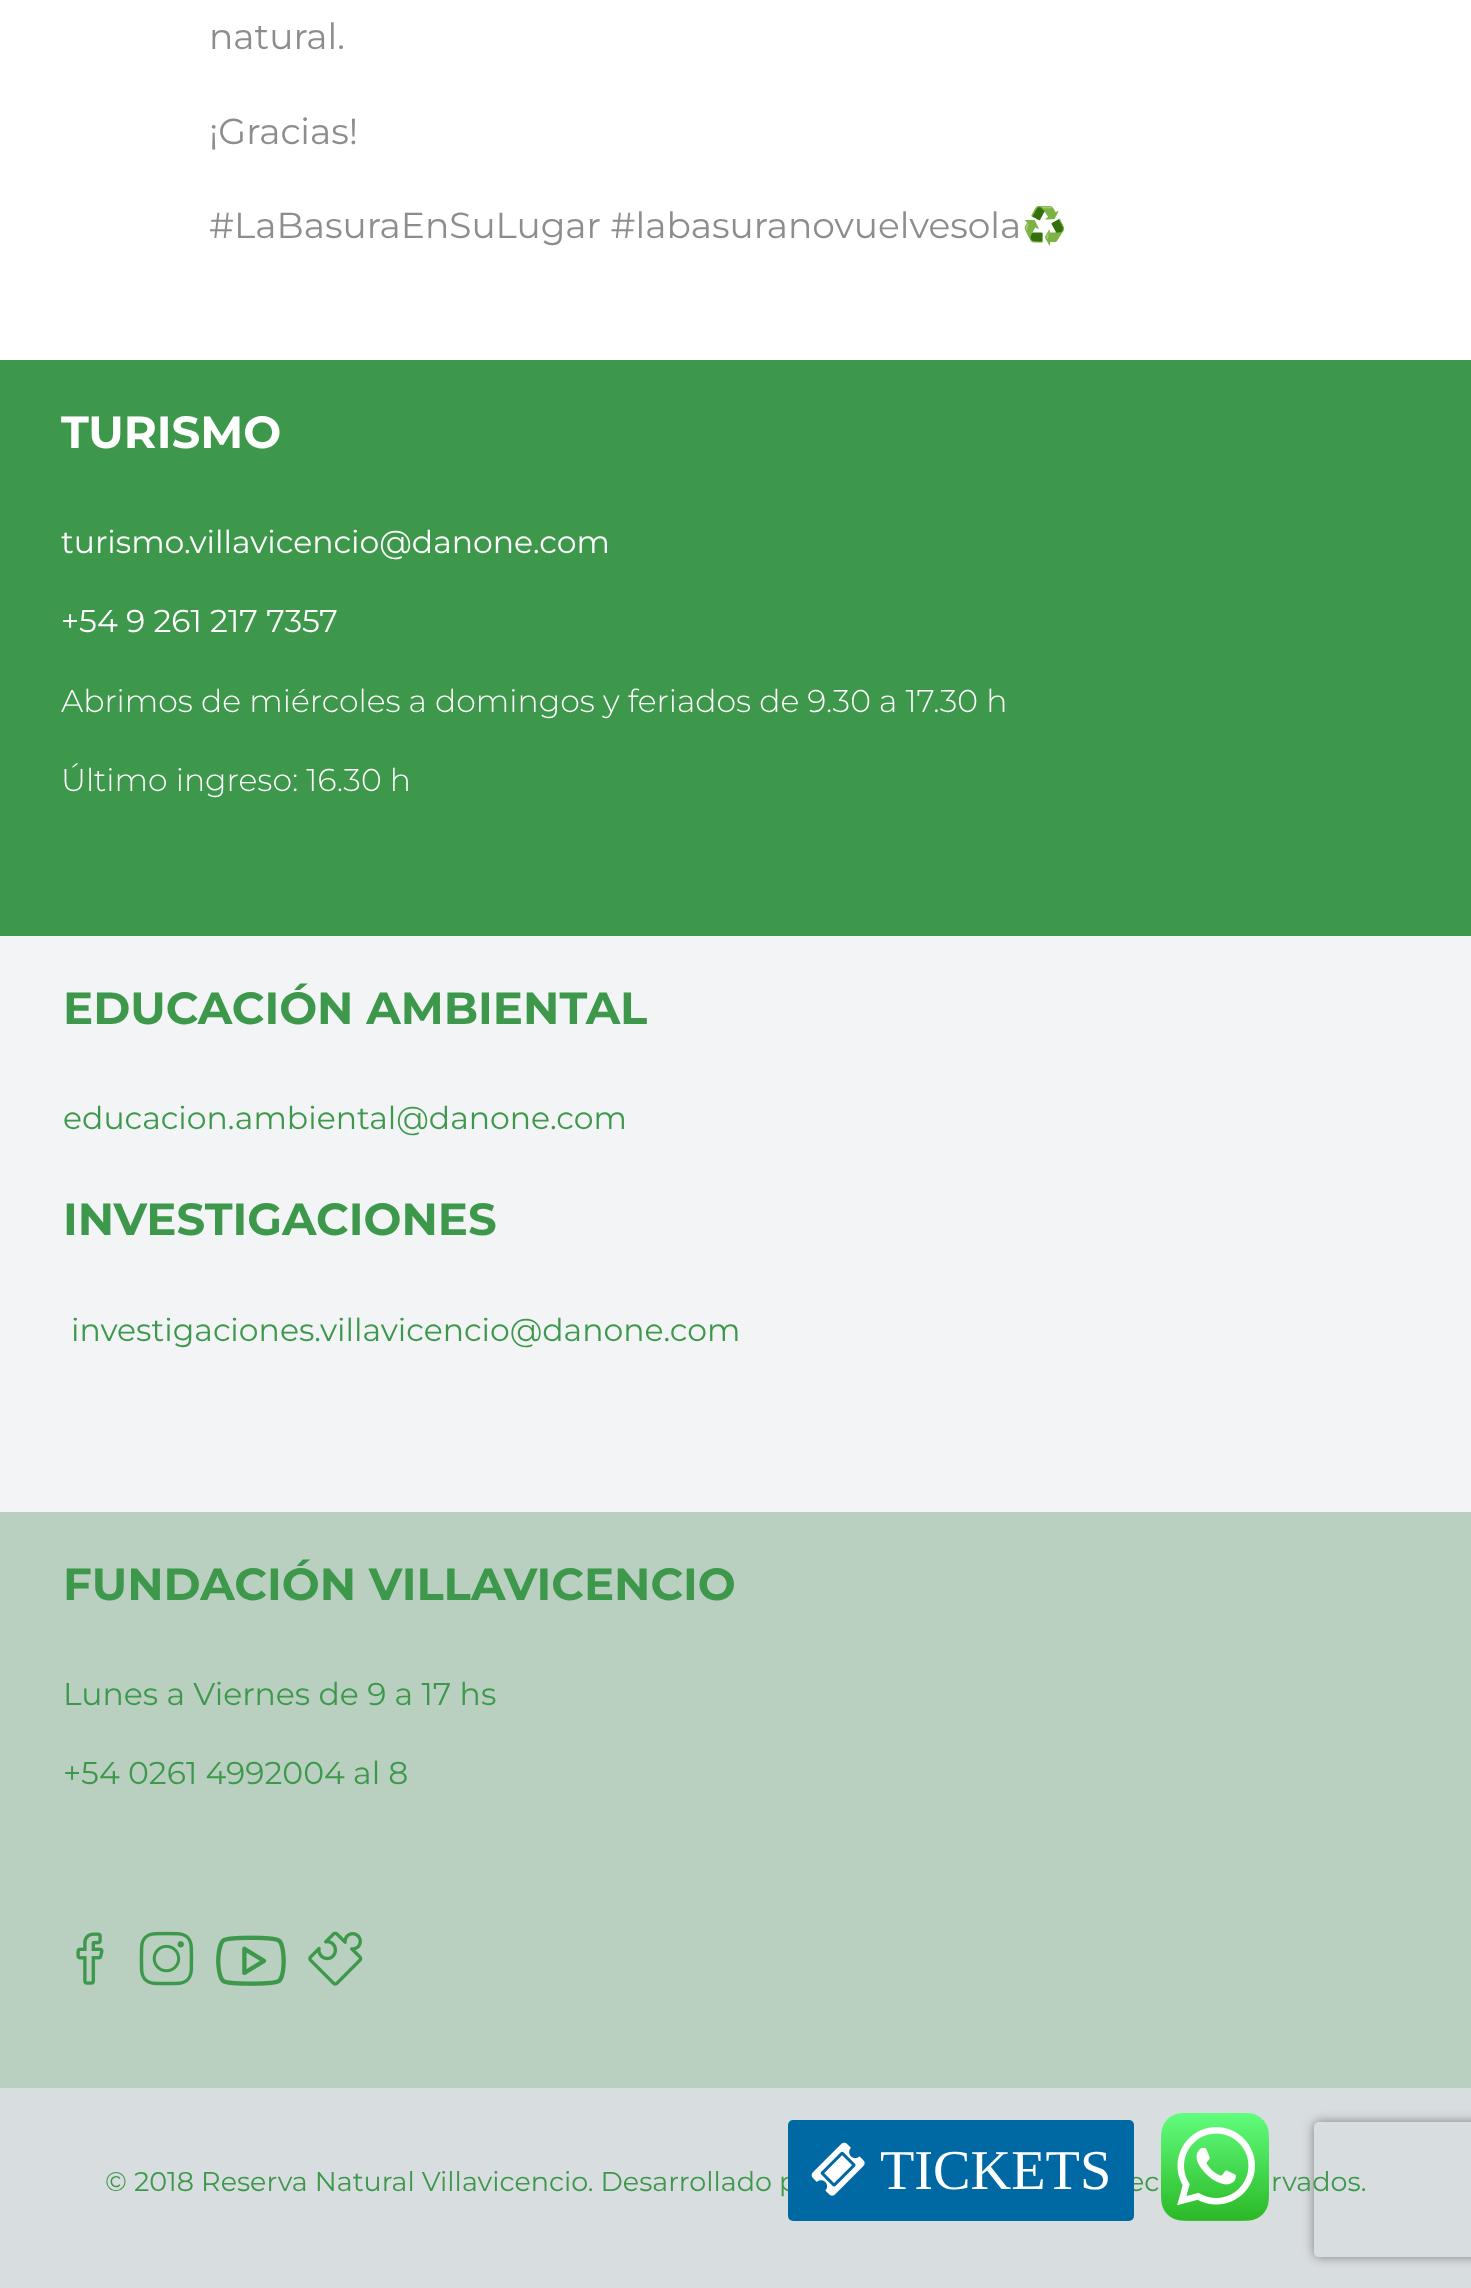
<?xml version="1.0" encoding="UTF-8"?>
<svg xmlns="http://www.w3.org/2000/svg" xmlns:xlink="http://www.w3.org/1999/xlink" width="1471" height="2288">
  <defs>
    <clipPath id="clip1"><path d="M 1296 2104 h 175 v 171 h -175 z m 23 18 h 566 c 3 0 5 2 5 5 v 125 c 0 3 -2 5 -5 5 h -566 c -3 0 -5 -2 -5 -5 v -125 c 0 -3 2 -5 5 -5 z" clip-rule="evenodd" /></clipPath>
  </defs>
  <rect width="100%" height="100%" fill="#ffffff" />
  <rect y="360" width="1471" height="576" fill="#3e984b" />
  <rect y="936" width="1471" height="576" fill="#f2f4f6" />
  <rect y="1512" width="1471" height="576" fill="#b9d0c0" />
  <image x="76" y="1932" width="28" height="53" xlink:href="image1.png" />
  <image x="139" y="1931" width="55" height="55" xlink:href="image2.png" />
  <image x="216" y="1935" width="70" height="51" xlink:href="image3.png" />
  <image x="308" y="1931" width="55" height="55" xlink:href="image4.png" />
  <rect y="2088" width="1471" height="200" fill="#d8dddf" />
  <g clip-path="url(#clip1)">
    <rect x="1314" y="2122" width="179" height="135" rx="5" fill="#808080" filter="blur(5.5px)" />
  </g>
  <image x="1161" y="2113" width="108" height="108" xlink:href="image6.png" />
  <text x="209" y="49" style="font-family: Montserrat; font-size: 36px; fill: #8d8d8d">natural.</text>
  <text x="209" y="144" style="font-family: Montserrat; font-size: 36px; fill: #8d8d8d">¡Gracias!</text>
  <text x="209" y="238" style="font-family: Montserrat; font-size: 36px; fill: #8d8d8d">#LaBasuraEnSuLugar #labasuranovuelvesola</text>
  <text x="1022" y="238" style="font-family: Noto Color Emoji; font-size: 36px; fill: #8d8d8d">♻️</text>
  <text x="61" y="448" style="font-family: Montserrat; font-size: 45px; font-weight: bold; fill: #ffffff">TURISMO</text>
  <text x="61" y="553" style="font-family: Montserrat; font-size: 31.5px; fill: #ffffff">turismo.villavicencio@danone.com</text>
  <text x="61" y="632" style="font-family: Montserrat; font-size: 31.5px; fill: #ffffff">+54 9 261 217 7357</text>
  <text x="61" y="712" style="font-family: Montserrat; font-size: 31.5px; font-weight: 300; fill: #ffffff">Abrimos de miércoles a domingos y feriados de 9.30 a 17.30 h</text>
  <text x="61" y="791" style="font-family: Montserrat; font-size: 31.5px; font-weight: 300; fill: #ffffff">Último ingreso: 16.30 h</text>
  <text x="63" y="1024" style="font-family: Montserrat; font-size: 45px; font-weight: bold; fill: #3e984c">EDUCACIÓN AMBIENTAL</text>
  <text x="63" y="1129" style="font-family: Montserrat; font-size: 31.5px; fill: #3e984c">educacion.ambiental@danone.com</text>
  <text x="63" y="1235" style="font-family: Montserrat; font-size: 45px; font-weight: bold; fill: #3e984c">INVESTIGACIONES</text>
  <text x="71" y="1341" style="font-family: Montserrat; font-size: 31.5px; fill: #3e984c">investigaciones.villavicencio@danone.com</text>
  <text x="63" y="1600" style="font-family: Montserrat; font-size: 45px; font-weight: bold; fill: #3e984c">FUNDACIÓN VILLAVICENCIO</text>
  <text x="63" y="1705" style="font-family: Montserrat; font-size: 31.5px; fill: #3e984c">Lunes a Viernes de 9 a 17 hs</text>
  <text x="63" y="1784" style="font-family: Montserrat; font-size: 31.5px; fill: #3e984c">+54 0261 4992004 al 8</text>
  <text x="105" y="2191" style="font-family: Montserrat; font-size: 27px; fill: #3e984c">© 2018 Reserva Natural Villavicencio. Desarrollado p</text>
  <text x="1128" y="2191" style="font-family: Montserrat; font-size: 27px; fill: #3e984c">ec</text>
  <rect x="788" y="2120" width="346" height="101" rx="5" fill="#0068a3" />
  <text x="880" y="2189" style="font-family: Liberation Serif; font-size: 56.25px; fill: #ffffff">TICKETS</text>
  <image x="811" y="2142" width="54" height="54" xlink:href="image5.png" />
  <text x="1271" y="2191" style="font-family: Montserrat; font-size: 27px; fill: #3e984c">rvados.</text>
</svg>
